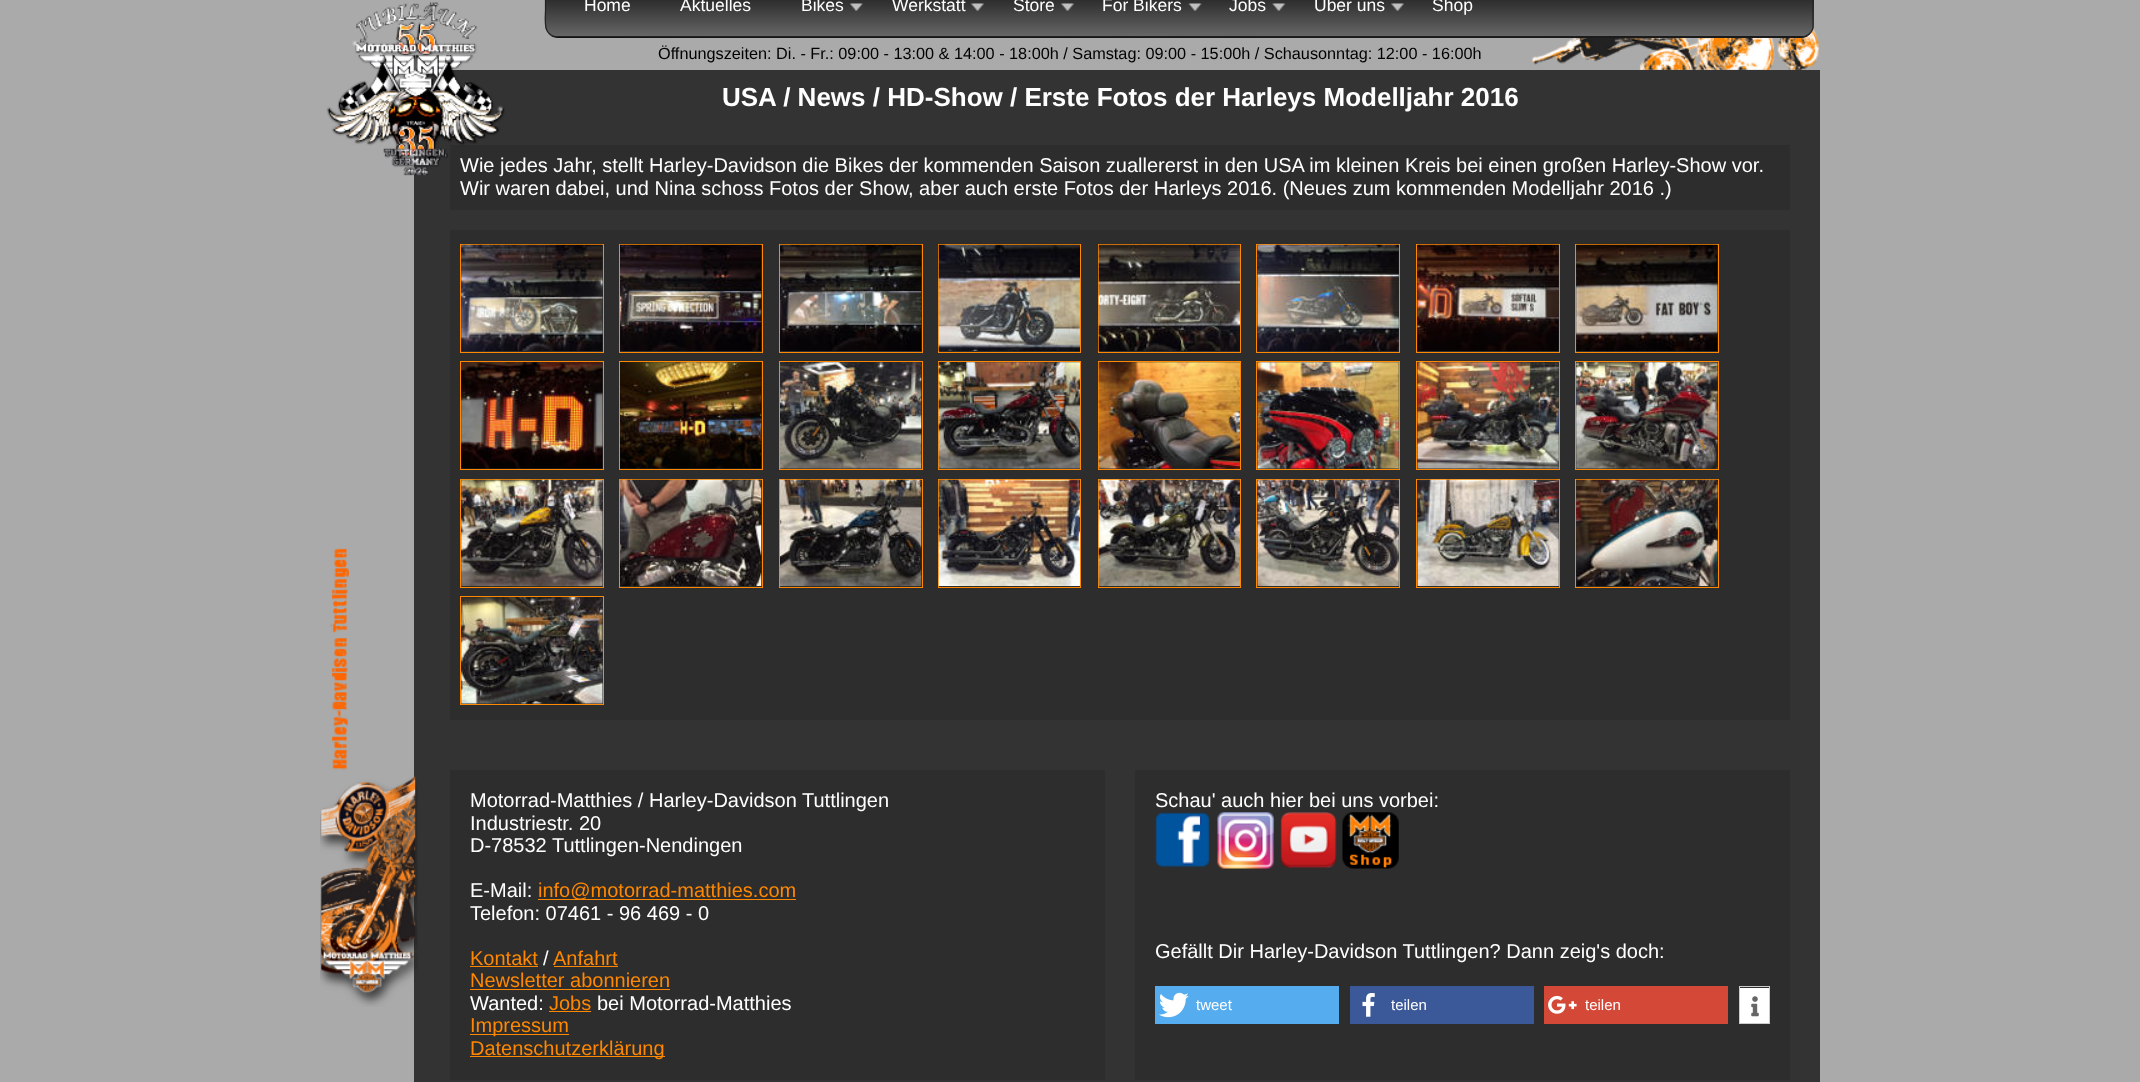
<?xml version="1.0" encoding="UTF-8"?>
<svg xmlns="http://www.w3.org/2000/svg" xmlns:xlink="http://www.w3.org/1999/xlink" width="2140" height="1082">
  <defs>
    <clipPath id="clip1"><rect x="545" y="-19" width="1269" height="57" rx="13" /></clipPath>
    <linearGradient id="g1" gradientUnits="userSpaceOnUse" x1="1179" y1="-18" x2="1179" y2="36"><stop offset="0" stop-color="#111111" /><stop offset="1" stop-color="#666666" /></linearGradient>
    <linearGradient id="g2" gradientUnits="userSpaceOnUse" x1="1179" y1="36" x2="1179" y2="90"><stop offset="0" stop-color="#111111" /><stop offset="1" stop-color="#666666" /></linearGradient>
  </defs>
  <rect width="100%" height="100%" fill="#aaaaaa" />
  <image x="1531" y="28" width="289" height="42" xlink:href="image2.png" />
  <g clip-path="url(#clip1)">
    <rect x="545" width="1269" height="36" fill="url(#g1)" />
    <rect x="545" y="36" width="1269" height="2" fill="url(#g2)" />
  </g>
  <path d="M 1809.5 -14.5 c 5 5 3.5 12.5 3.5 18.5 v 23.5 c -1 5.5 -6 9.5 -12 9.5 l -1246 -0.5 c -12.5 -2.5 -9.5 -18 -9.5 -27 v -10.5 c 0 -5 0 -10 3.5 -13.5" fill="none" stroke="#222222" stroke-width="1.2" />
  <image x="850" y="3" width="13" height="8" xlink:href="image3.png" />
  <image x="971" y="3" width="13" height="8" xlink:href="image4.png" />
  <image x="1061" y="3" width="13" height="8" xlink:href="image4.png" />
  <image x="1188" y="3" width="14" height="8" xlink:href="image5.png" />
  <image x="1272" y="3" width="14" height="8" xlink:href="image6.png" />
  <image x="1391" y="3" width="13" height="8" xlink:href="image4.png" />
  <rect x="414" y="70" width="1406" height="1012" fill="#333333" />
  <rect x="450" y="145" width="1340" height="65" fill="#2d2d2d" />
  <rect x="450" y="230" width="1340" height="490" fill="#2d2d2d" />
  <rect x="460.5" y="244.5" width="143" height="108" fill="none" stroke="#ff8800" />
  <image x="461" y="244" width="142" height="107" xlink:href="image7.png" />
  <rect x="619.5" y="244.5" width="143" height="108" fill="none" stroke="#ff8800" />
  <image x="620" y="244" width="142" height="107" xlink:href="image8.png" />
  <rect x="779.5" y="244.5" width="143" height="108" fill="none" stroke="#ff8800" />
  <image x="780" y="244" width="142" height="107" xlink:href="image9.png" />
  <rect x="938.5" y="244.5" width="142" height="108" fill="none" stroke="#ff8800" />
  <image x="938" y="244" width="142" height="107" xlink:href="image10.png" />
  <rect x="1098.5" y="244.5" width="142" height="108" fill="none" stroke="#ff8800" />
  <image x="1098" y="244" width="142" height="107" xlink:href="image11.png" />
  <rect x="1256.5" y="244.5" width="143" height="108" fill="none" stroke="#ff8800" />
  <image x="1257" y="244" width="142" height="107" xlink:href="image12.png" />
  <rect x="1416.5" y="244.5" width="143" height="108" fill="none" stroke="#ff8800" />
  <image x="1417" y="244" width="142" height="107" xlink:href="image13.png" />
  <rect x="1575.5" y="244.5" width="143" height="108" fill="none" stroke="#ff8800" />
  <image x="1576" y="244" width="142" height="107" xlink:href="image14.png" />
  <rect x="460.5" y="361.5" width="143" height="108" fill="none" stroke="#ff8800" />
  <rect x="619.5" y="361.5" width="143" height="108" fill="none" stroke="#ff8800" />
  <rect x="779.5" y="361.5" width="143" height="108" fill="none" stroke="#ff8800" />
  <rect x="938.5" y="361.5" width="142" height="108" fill="none" stroke="#ff8800" />
  <rect x="1098.5" y="361.5" width="142" height="108" fill="none" stroke="#ff8800" />
  <rect x="1256.5" y="361.5" width="143" height="108" fill="none" stroke="#ff8800" />
  <rect x="1416.5" y="361.5" width="143" height="108" fill="none" stroke="#ff8800" />
  <rect x="1575.5" y="361.5" width="143" height="108" fill="none" stroke="#ff8800" />
  <image x="461" y="362" width="142" height="107" xlink:href="image15.png" />
  <image x="620" y="362" width="142" height="107" xlink:href="image16.png" />
  <image x="780" y="362" width="142" height="107" xlink:href="image17.png" />
  <image x="938" y="362" width="142" height="107" xlink:href="image18.png" />
  <image x="1098" y="362" width="142" height="107" xlink:href="image19.png" />
  <image x="1257" y="362" width="142" height="107" xlink:href="image20.png" />
  <image x="1417" y="362" width="142" height="107" xlink:href="image21.png" />
  <image x="1576" y="362" width="142" height="107" xlink:href="image22.png" />
  <rect x="460.5" y="479.5" width="143" height="108" fill="none" stroke="#ff8800" />
  <image x="461" y="479" width="142" height="107" xlink:href="image23.png" />
  <rect x="619.5" y="479.5" width="143" height="108" fill="none" stroke="#ff8800" />
  <image x="620" y="479" width="142" height="107" xlink:href="image24.png" />
  <rect x="779.5" y="479.5" width="143" height="108" fill="none" stroke="#ff8800" />
  <image x="780" y="479" width="142" height="107" xlink:href="image25.png" />
  <rect x="938.5" y="479.5" width="142" height="108" fill="none" stroke="#ff8800" />
  <image x="938" y="479" width="142" height="107" xlink:href="image26.png" />
  <rect x="1098.5" y="479.5" width="142" height="108" fill="none" stroke="#ff8800" />
  <image x="1098" y="479" width="142" height="107" xlink:href="image27.png" />
  <rect x="1256.5" y="479.5" width="143" height="108" fill="none" stroke="#ff8800" />
  <image x="1257" y="479" width="142" height="107" xlink:href="image28.png" />
  <rect x="1416.5" y="479.5" width="143" height="108" fill="none" stroke="#ff8800" />
  <image x="1417" y="479" width="142" height="107" xlink:href="image29.png" />
  <rect x="1575.5" y="479.5" width="143" height="108" fill="none" stroke="#ff8800" />
  <image x="1576" y="479" width="142" height="107" xlink:href="image30.png" />
  <rect x="460.5" y="596.5" width="143" height="108" fill="none" stroke="#ff8800" />
  <image x="461" y="597" width="142" height="107" xlink:href="image31.png" />
  <image x="320" y="548" width="98" height="459" xlink:href="image32.png" />
  <rect x="450" y="770" width="655" height="310" fill="#2d2d2d" />
  <rect x="538" y="899" width="258" height="1" fill="#ff8800" />
  <rect x="470" y="966" width="68" height="1" fill="#ff8800" />
  <rect x="554" y="966" width="64" height="1" fill="#ff8800" />
  <rect x="470" y="989" width="200" height="1" fill="#ff8800" />
  <rect x="549" y="1011" width="42" height="1" fill="#ff8800" />
  <rect x="470" y="1034" width="99" height="1" fill="#ff8800" />
  <rect x="470" y="1056" width="195" height="1" fill="#ff8800" />
  <rect x="1135" y="770" width="655" height="310" fill="#2d2d2d" />
  <image x="1155" y="812" width="55" height="56" xlink:href="image33.png" />
  <image x="1217" y="812" width="57" height="57" xlink:href="image34.png" />
  <image x="1280" y="812" width="57" height="57" xlink:href="image35.png" />
  <image x="1342" y="812" width="57" height="57" xlink:href="image36.png" />
  <rect x="1155" y="986" width="184" height="38" fill="#55acee" />
  <image x="1159" y="992" width="30" height="26" xlink:href="image37.png" />
  <rect x="1350" y="986" width="184" height="38" fill="#3b5998" />
  <image x="1362" y="993" width="13" height="24" xlink:href="image38.png" />
  <rect x="1544" y="986" width="184" height="38" fill="#d34836" />
  <image x="1548" y="995" width="29" height="19" xlink:href="image39.png" />
  <rect x="1739.5" y="986.5" width="30" height="37" fill="none" stroke="#cccccc" />
  <rect x="1740" y="988" width="29" height="35" fill="#ffffff" />
  <image x="1751" y="996" width="8" height="21" xlink:href="image40.png" />
  <text x="584" y="11" style="font-family: Liberation Sans; font-size: 17.5px; fill: #ffffff">Home</text>
  <text x="680" y="11" style="font-family: Liberation Sans; font-size: 17.5px; fill: #ffffff">Aktuelles</text>
  <text x="801" y="11" style="font-family: Liberation Sans; font-size: 17.5px; fill: #ffffff">Bikes</text>
  <text x="892" y="11" style="font-family: Liberation Sans; font-size: 17.5px; fill: #ffffff">Werkstatt</text>
  <text x="1013" y="11" style="font-family: Liberation Sans; font-size: 17.5px; fill: #ffffff">Store</text>
  <text x="1102" y="11" style="font-family: Liberation Sans; font-size: 17.5px; fill: #ffffff">For Bikers</text>
  <text x="1229" y="11" style="font-family: Liberation Sans; font-size: 17.5px; fill: #ffffff">Jobs</text>
  <text x="1314" y="11" style="font-family: Liberation Sans; font-size: 17.5px; fill: #ffffff">Über uns</text>
  <text x="1432" y="11" style="font-family: Liberation Sans; font-size: 17.5px; fill: #ffffff">Shop</text>
  <text x="658" y="59" style="font-family: Liberation Sans; font-size: 16.25px; fill: #000000">Öffnungszeiten: Di. - Fr.: 09:00 - 13:00 &amp; 14:00 - 18:00h / Samstag: 09:00 - 15:00h / Schausonntag: 12:00 - 16:00h</text>
  <text x="722" y="106" style="font-family: Liberation Sans; font-size: 26px; font-weight: bold; fill: #ffffff">USA / News / HD-Show / Erste Fotos der Harleys Modelljahr 2016</text>
  <text x="460" y="172" style="font-family: Liberation Sans; font-size: 20px; fill: #ffffff">Wie jedes Jahr, stellt Harley-Davidson die Bikes der kommenden Saison zuallererst in den USA im kleinen Kreis bei einen großen Harley-Show vor.</text>
  <image x="326" y="2" width="179" height="174" xlink:href="image1.png" />
  <text x="460" y="195" style="font-family: Liberation Sans; font-size: 20px; fill: #ffffff">Wir waren dabei, und Nina schoss Fotos der Show, aber auch erste Fotos der Harleys 2016. (Neues zum kommenden Modelljahr 2016 .)</text>
  <text x="470" y="807" style="font-family: Liberation Sans; font-size: 20px; fill: #ffffff">Motorrad-Matthies / Harley-Davidson Tuttlingen</text>
  <text x="470" y="830" style="font-family: Liberation Sans; font-size: 20px; fill: #ffffff">Industriestr. 20</text>
  <text x="470" y="852" style="font-family: Liberation Sans; font-size: 20px; fill: #ffffff">D-78532 Tuttlingen-Nendingen</text>
  <text x="470" y="897" style="font-family: Liberation Sans; font-size: 20px; fill: #ffffff">E-Mail:</text>
  <text x="538" y="897" style="font-family: Liberation Sans; font-size: 20px; fill: #ff8800">info@motorrad-matthies.com</text>
  <text x="470" y="920" style="font-family: Liberation Sans; font-size: 20px; fill: #ffffff">Telefon: 07461 - 96 469 - 0</text>
  <text x="470" y="965" style="font-family: Liberation Sans; font-size: 20px; fill: #ff8800">Kontakt</text>
  <text x="543" y="965" style="font-family: Liberation Sans; font-size: 20px; fill: #ffffff">/</text>
  <text x="553" y="965" style="font-family: Liberation Sans; font-size: 20px; fill: #ff8800">Anfahrt</text>
  <text x="470" y="987" style="font-family: Liberation Sans; font-size: 20px; fill: #ff8800">Newsletter abonnieren</text>
  <text x="470" y="1010" style="font-family: Liberation Sans; font-size: 20px; fill: #ffffff">Wanted:</text>
  <text x="549" y="1010" style="font-family: Liberation Sans; font-size: 20px; fill: #ff8800">Jobs</text>
  <text x="597" y="1010" style="font-family: Liberation Sans; font-size: 20px; fill: #ffffff">bei Motorrad-Matthies</text>
  <text x="470" y="1032" style="font-family: Liberation Sans; font-size: 20px; fill: #ff8800">Impressum</text>
  <text x="470" y="1055" style="font-family: Liberation Sans; font-size: 20px; fill: #ff8800">Datenschutzerklärung</text>
  <text x="1155" y="807" style="font-family: Liberation Sans; font-size: 20px; fill: #ffffff">Schau' auch hier bei uns vorbei:</text>
  <text x="1155" y="958" style="font-family: Liberation Sans; font-size: 20px; fill: #ffffff">Gefällt Dir Harley-Davidson Tuttlingen? Dann zeig's doch:</text>
  <text x="1196" y="1010" style="font-family: Liberation Sans; font-size: 15px; fill: #ffffff">tweet</text>
  <text x="1391" y="1010" style="font-family: Liberation Sans; font-size: 15px; fill: #ffffff">teilen</text>
  <text x="1585" y="1010" style="font-family: Liberation Sans; font-size: 15px; fill: #ffffff">teilen</text>
</svg>
